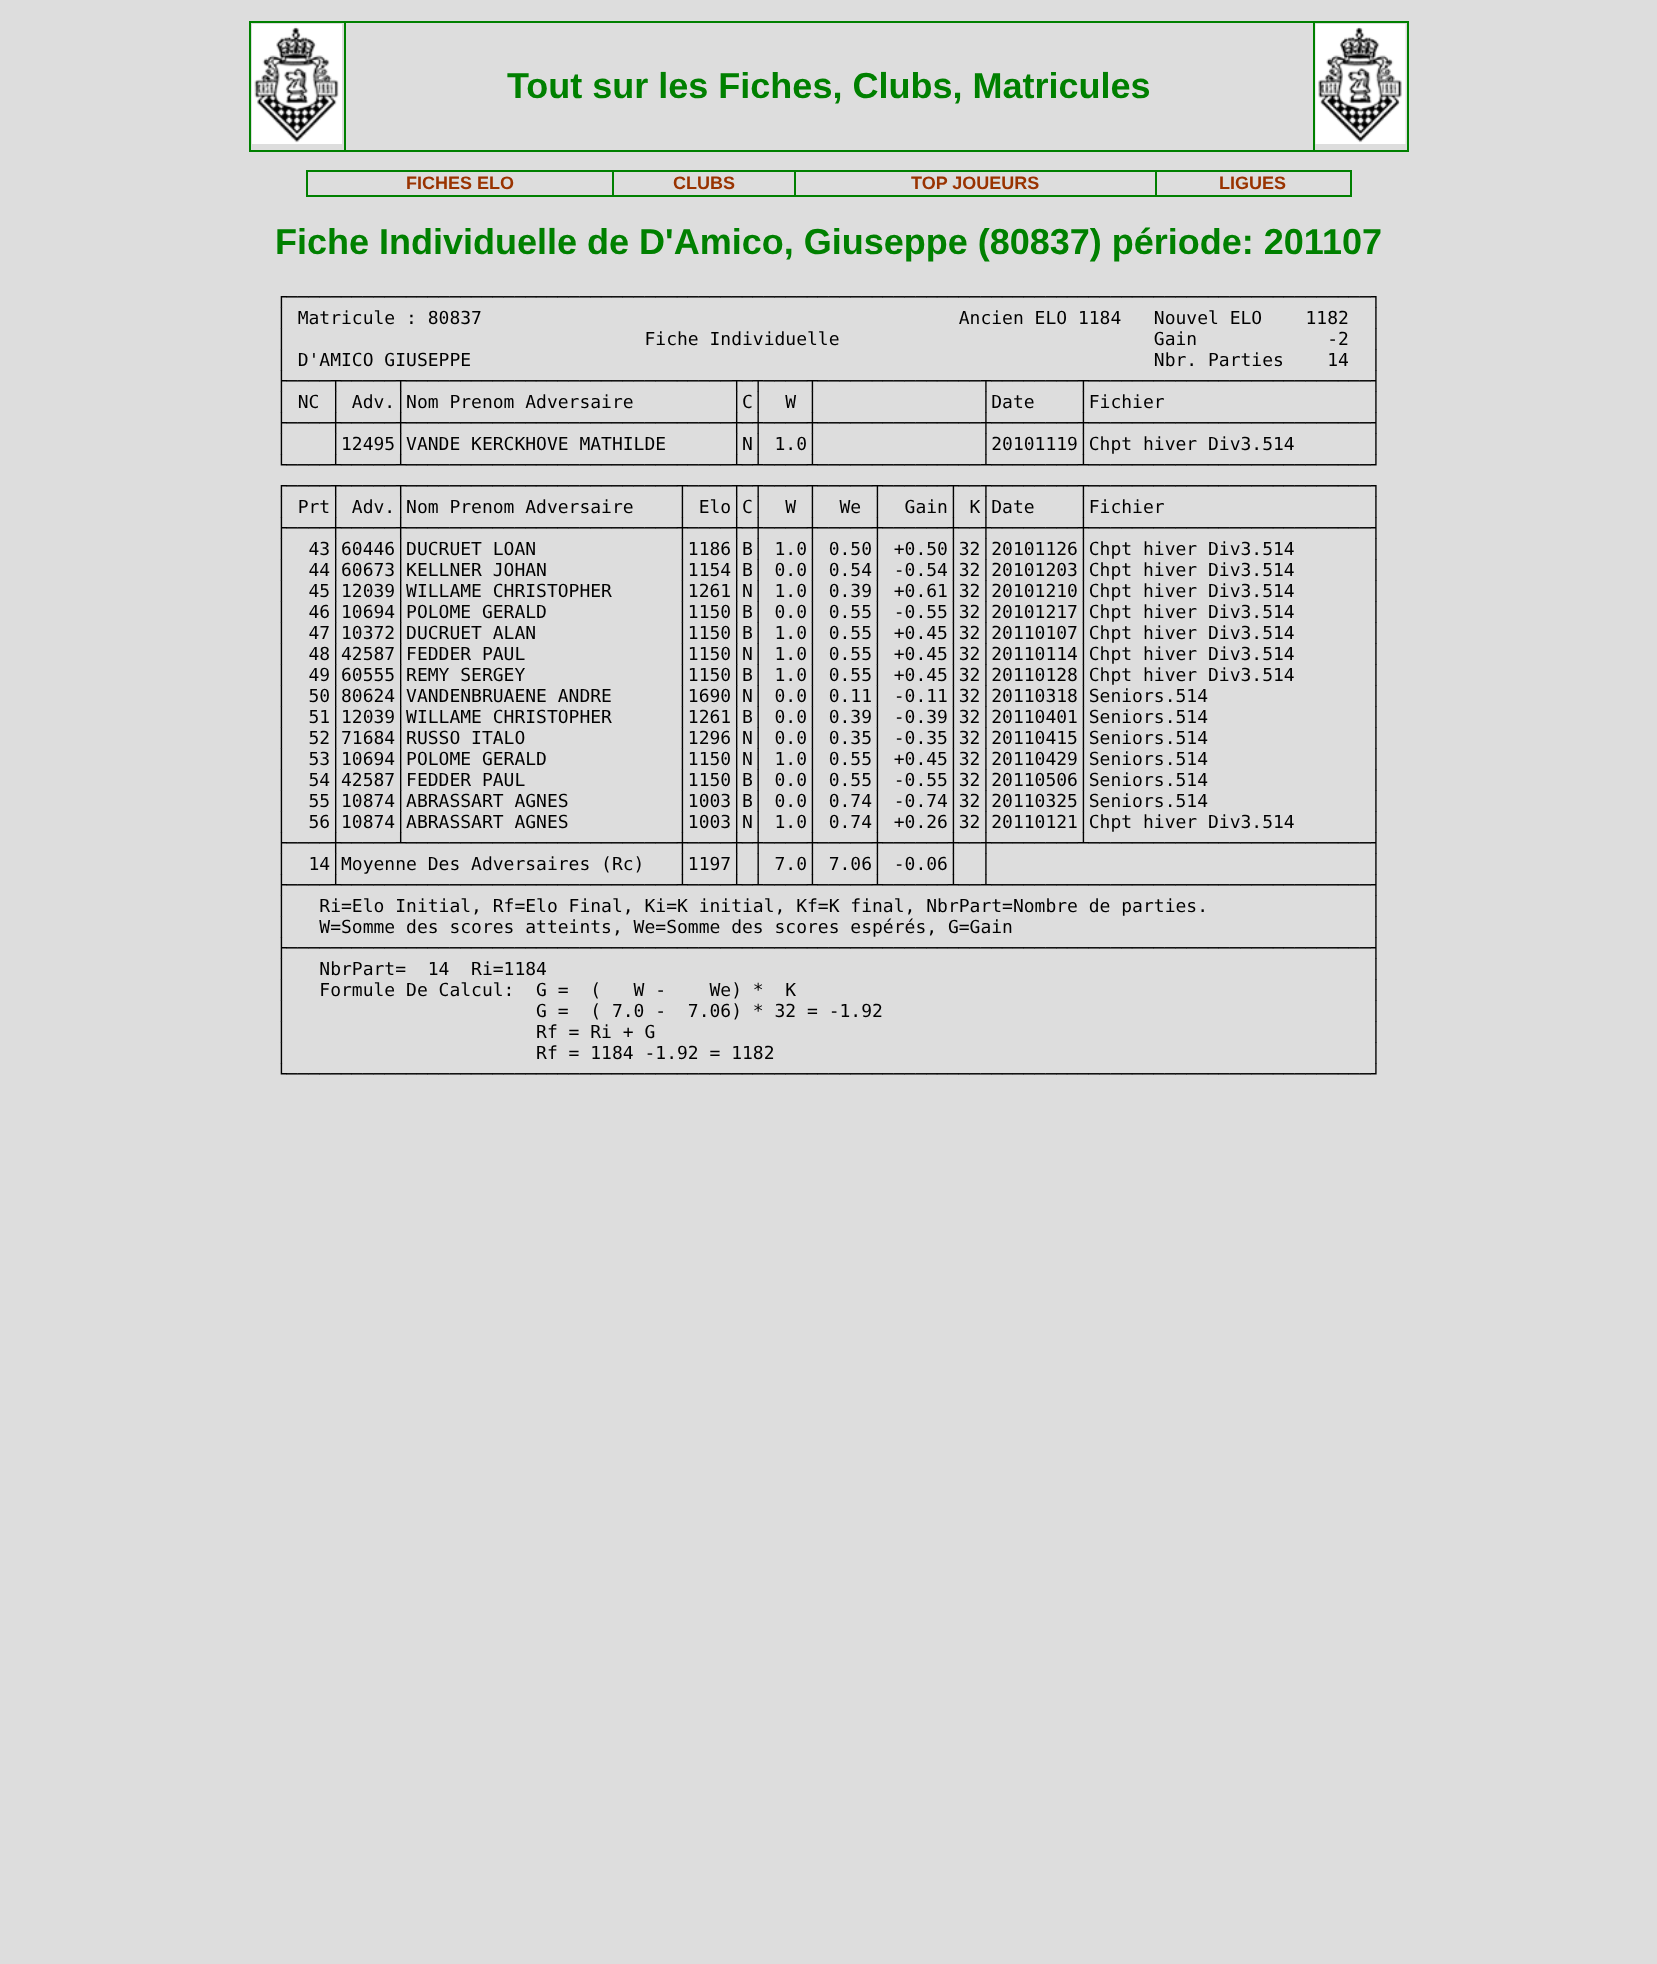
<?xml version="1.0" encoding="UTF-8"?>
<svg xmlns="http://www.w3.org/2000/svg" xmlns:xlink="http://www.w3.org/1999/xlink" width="1657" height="1964">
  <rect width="100%" height="100%" fill="#dddddd" />
  <rect x="249" y="21" width="1160" height="2" fill="#008000" />
  <rect x="1407" y="21" width="2" height="131" fill="#008000" />
  <rect x="249" y="150" width="1160" height="2" fill="#008000" />
  <rect x="249" y="21" width="2" height="131" fill="#008000" />
  <image x="252" y="24" width="90" height="120" xlink:href="image1.png" />
  <rect x="344" y="21" width="2" height="131" fill="#008000" />
  <rect x="1313" y="21" width="2" height="131" fill="#008000" />
  <image x="1315" y="24" width="91" height="120" xlink:href="image2.png" />
  <rect x="306" y="170" width="1046" height="2" fill="#008000" />
  <rect x="1350" y="170" width="2" height="27" fill="#008000" />
  <rect x="306" y="195" width="1046" height="2" fill="#008000" />
  <rect x="306" y="170" width="2" height="27" fill="#008000" />
  <rect x="612" y="170" width="2" height="27" fill="#008000" />
  <rect x="794" y="170" width="2" height="27" fill="#008000" />
  <rect x="1155" y="170" width="2" height="27" fill="#008000" />
  <text x="507" y="98" style="font-family: Liberation Sans; font-size: 36px; font-weight: bold; fill: #008000">Tout sur les Fiches, Clubs, Matricules</text>
  <text x="406" y="189" style="font-family: Liberation Sans; font-size: 18px; font-weight: bold; fill: #993300">FICHES ELO</text>
  <text x="673" y="189" style="font-family: Liberation Sans; font-size: 18px; font-weight: bold; fill: #993300">CLUBS</text>
  <text x="911" y="189" style="font-family: Liberation Sans; font-size: 18px; font-weight: bold; fill: #993300">TOP JOUEURS</text>
  <text x="1219" y="189" style="font-family: Liberation Sans; font-size: 18px; font-weight: bold; fill: #993300">LIGUES</text>
  <text x="275" y="254" style="font-family: Liberation Sans; font-size: 36px; font-weight: bold; fill: #008000">Fiche Individuelle de D'Amico, Giuseppe (80837) période: 201107</text>
  <text x="276" y="303" style="font-family: DejaVu Sans Mono; font-size: 18px; fill: #000000">┌────────────────────────────────────────────────────────────────────────────────────────────────────┐</text>
  <text x="276" y="324" style="font-family: DejaVu Sans Mono; font-size: 18px; fill: #000000" xml:space="preserve">│ Matricule : 80837                                            Ancien ELO 1184   Nouvel ELO    1182  │</text>
  <text x="276" y="345" style="font-family: DejaVu Sans Mono; font-size: 18px; fill: #000000" xml:space="preserve">│                                 Fiche Individuelle                             Gain            -2  │</text>
  <text x="276" y="366" style="font-family: DejaVu Sans Mono; font-size: 18px; fill: #000000" xml:space="preserve">│ D'AMICO GIUSEPPE                                                               Nbr. Parties    14  │</text>
  <text x="276" y="387" style="font-family: DejaVu Sans Mono; font-size: 18px; fill: #000000">├────┬─────┬──────────────────────────────┬─┬────┬───────────────┬────────┬──────────────────────────┤</text>
  <text x="276" y="408" style="font-family: DejaVu Sans Mono; font-size: 18px; fill: #000000" xml:space="preserve">│ NC │ Adv.│Nom Prenom Adversaire         │C│  W │               │Date    │Fichier                   │</text>
  <text x="276" y="429" style="font-family: DejaVu Sans Mono; font-size: 18px; fill: #000000">├────┼─────┼──────────────────────────────┼─┼────┼───────────────┼────────┼──────────────────────────┤</text>
  <text x="276" y="450" style="font-family: DejaVu Sans Mono; font-size: 18px; fill: #000000" xml:space="preserve">│    │12495│VANDE KERCKHOVE MATHILDE      │N│ 1.0│               │20101119│Chpt hiver Div3.514       │</text>
  <text x="276" y="471" style="font-family: DejaVu Sans Mono; font-size: 18px; fill: #000000">└────┴─────┴──────────────────────────────┴─┴────┴───────────────┴────────┴──────────────────────────┘</text>
  <text x="276" y="492" style="font-family: DejaVu Sans Mono; font-size: 18px; fill: #000000">┌────┬─────┬─────────────────────────┬────┬─┬────┬─────┬──────┬──┬────────┬──────────────────────────┐</text>
  <text x="276" y="513" style="font-family: DejaVu Sans Mono; font-size: 18px; fill: #000000" xml:space="preserve">│ Prt│ Adv.│Nom Prenom Adversaire    │ Elo│C│  W │  We │  Gain│ K│Date    │Fichier                   │</text>
  <text x="276" y="534" style="font-family: DejaVu Sans Mono; font-size: 18px; fill: #000000">├────┼─────┼─────────────────────────┼────┼─┼────┼─────┼──────┼──┼────────┼──────────────────────────┤</text>
  <text x="276" y="555" style="font-family: DejaVu Sans Mono; font-size: 18px; fill: #000000" xml:space="preserve">│  43│60446│DUCRUET LOAN             │1186│B│ 1.0│ 0.50│ +0.50│32│20101126│Chpt hiver Div3.514       │</text>
  <text x="276" y="576" style="font-family: DejaVu Sans Mono; font-size: 18px; fill: #000000" xml:space="preserve">│  44│60673│KELLNER JOHAN            │1154│B│ 0.0│ 0.54│ -0.54│32│20101203│Chpt hiver Div3.514       │</text>
  <text x="276" y="597" style="font-family: DejaVu Sans Mono; font-size: 18px; fill: #000000" xml:space="preserve">│  45│12039│WILLAME CHRISTOPHER      │1261│N│ 1.0│ 0.39│ +0.61│32│20101210│Chpt hiver Div3.514       │</text>
  <text x="276" y="618" style="font-family: DejaVu Sans Mono; font-size: 18px; fill: #000000" xml:space="preserve">│  46│10694│POLOME GERALD            │1150│B│ 0.0│ 0.55│ -0.55│32│20101217│Chpt hiver Div3.514       │</text>
  <text x="276" y="639" style="font-family: DejaVu Sans Mono; font-size: 18px; fill: #000000" xml:space="preserve">│  47│10372│DUCRUET ALAN             │1150│B│ 1.0│ 0.55│ +0.45│32│20110107│Chpt hiver Div3.514       │</text>
  <text x="276" y="660" style="font-family: DejaVu Sans Mono; font-size: 18px; fill: #000000" xml:space="preserve">│  48│42587│FEDDER PAUL              │1150│N│ 1.0│ 0.55│ +0.45│32│20110114│Chpt hiver Div3.514       │</text>
  <text x="276" y="681" style="font-family: DejaVu Sans Mono; font-size: 18px; fill: #000000" xml:space="preserve">│  49│60555│REMY SERGEY              │1150│B│ 1.0│ 0.55│ +0.45│32│20110128│Chpt hiver Div3.514       │</text>
  <text x="276" y="702" style="font-family: DejaVu Sans Mono; font-size: 18px; fill: #000000" xml:space="preserve">│  50│80624│VANDENBRUAENE ANDRE      │1690│N│ 0.0│ 0.11│ -0.11│32│20110318│Seniors.514               │</text>
  <text x="276" y="723" style="font-family: DejaVu Sans Mono; font-size: 18px; fill: #000000" xml:space="preserve">│  51│12039│WILLAME CHRISTOPHER      │1261│B│ 0.0│ 0.39│ -0.39│32│20110401│Seniors.514               │</text>
  <text x="276" y="744" style="font-family: DejaVu Sans Mono; font-size: 18px; fill: #000000" xml:space="preserve">│  52│71684│RUSSO ITALO              │1296│N│ 0.0│ 0.35│ -0.35│32│20110415│Seniors.514               │</text>
  <text x="276" y="765" style="font-family: DejaVu Sans Mono; font-size: 18px; fill: #000000" xml:space="preserve">│  53│10694│POLOME GERALD            │1150│N│ 1.0│ 0.55│ +0.45│32│20110429│Seniors.514               │</text>
  <text x="276" y="786" style="font-family: DejaVu Sans Mono; font-size: 18px; fill: #000000" xml:space="preserve">│  54│42587│FEDDER PAUL              │1150│B│ 0.0│ 0.55│ -0.55│32│20110506│Seniors.514               │</text>
  <text x="276" y="807" style="font-family: DejaVu Sans Mono; font-size: 18px; fill: #000000" xml:space="preserve">│  55│10874│ABRASSART AGNES          │1003│B│ 0.0│ 0.74│ -0.74│32│20110325│Seniors.514               │</text>
  <text x="276" y="828" style="font-family: DejaVu Sans Mono; font-size: 18px; fill: #000000" xml:space="preserve">│  56│10874│ABRASSART AGNES          │1003│N│ 1.0│ 0.74│ +0.26│32│20110121│Chpt hiver Div3.514       │</text>
  <text x="276" y="849" style="font-family: DejaVu Sans Mono; font-size: 18px; fill: #000000">├────┼─────┴─────────────────────────┼────┼─┼────┼─────┼──────┼──┼────────┴──────────────────────────┤</text>
  <text x="276" y="870" style="font-family: DejaVu Sans Mono; font-size: 18px; fill: #000000" xml:space="preserve">│  14│Moyenne Des Adversaires (Rc)   │1197│ │ 7.0│ 7.06│ -0.06│  │                                   │</text>
  <text x="276" y="891" style="font-family: DejaVu Sans Mono; font-size: 18px; fill: #000000">├────┴───────────────────────────────┴────┴─┴────┴─────┴──────┴──┴───────────────────────────────────┤</text>
  <text x="276" y="912" style="font-family: DejaVu Sans Mono; font-size: 18px; fill: #000000" xml:space="preserve">│   Ri=Elo Initial, Rf=Elo Final, Ki=K initial, Kf=K final, NbrPart=Nombre de parties.               │</text>
  <text x="276" y="933" style="font-family: DejaVu Sans Mono; font-size: 18px; fill: #000000" xml:space="preserve">│   W=Somme des scores atteints, We=Somme des scores espérés, G=Gain                                 │</text>
  <text x="276" y="954" style="font-family: DejaVu Sans Mono; font-size: 18px; fill: #000000">├────────────────────────────────────────────────────────────────────────────────────────────────────┤</text>
  <text x="276" y="975" style="font-family: DejaVu Sans Mono; font-size: 18px; fill: #000000" xml:space="preserve">│   NbrPart=  14  Ri=1184                                                                            │</text>
  <text x="276" y="996" style="font-family: DejaVu Sans Mono; font-size: 18px; fill: #000000" xml:space="preserve">│   Formule De Calcul:  G =  (   W -    We) *  K                                                     │</text>
  <text x="276" y="1017" style="font-family: DejaVu Sans Mono; font-size: 18px; fill: #000000" xml:space="preserve">│                       G =  ( 7.0 -  7.06) * 32 = -1.92                                             │</text>
  <text x="276" y="1038" style="font-family: DejaVu Sans Mono; font-size: 18px; fill: #000000" xml:space="preserve">│                       Rf = Ri + G                                                                  │</text>
  <text x="276" y="1059" style="font-family: DejaVu Sans Mono; font-size: 18px; fill: #000000" xml:space="preserve">│                       Rf = 1184 -1.92 = 1182                                                       │</text>
  <text x="276" y="1080" style="font-family: DejaVu Sans Mono; font-size: 18px; fill: #000000">└────────────────────────────────────────────────────────────────────────────────────────────────────┘</text>
</svg>
